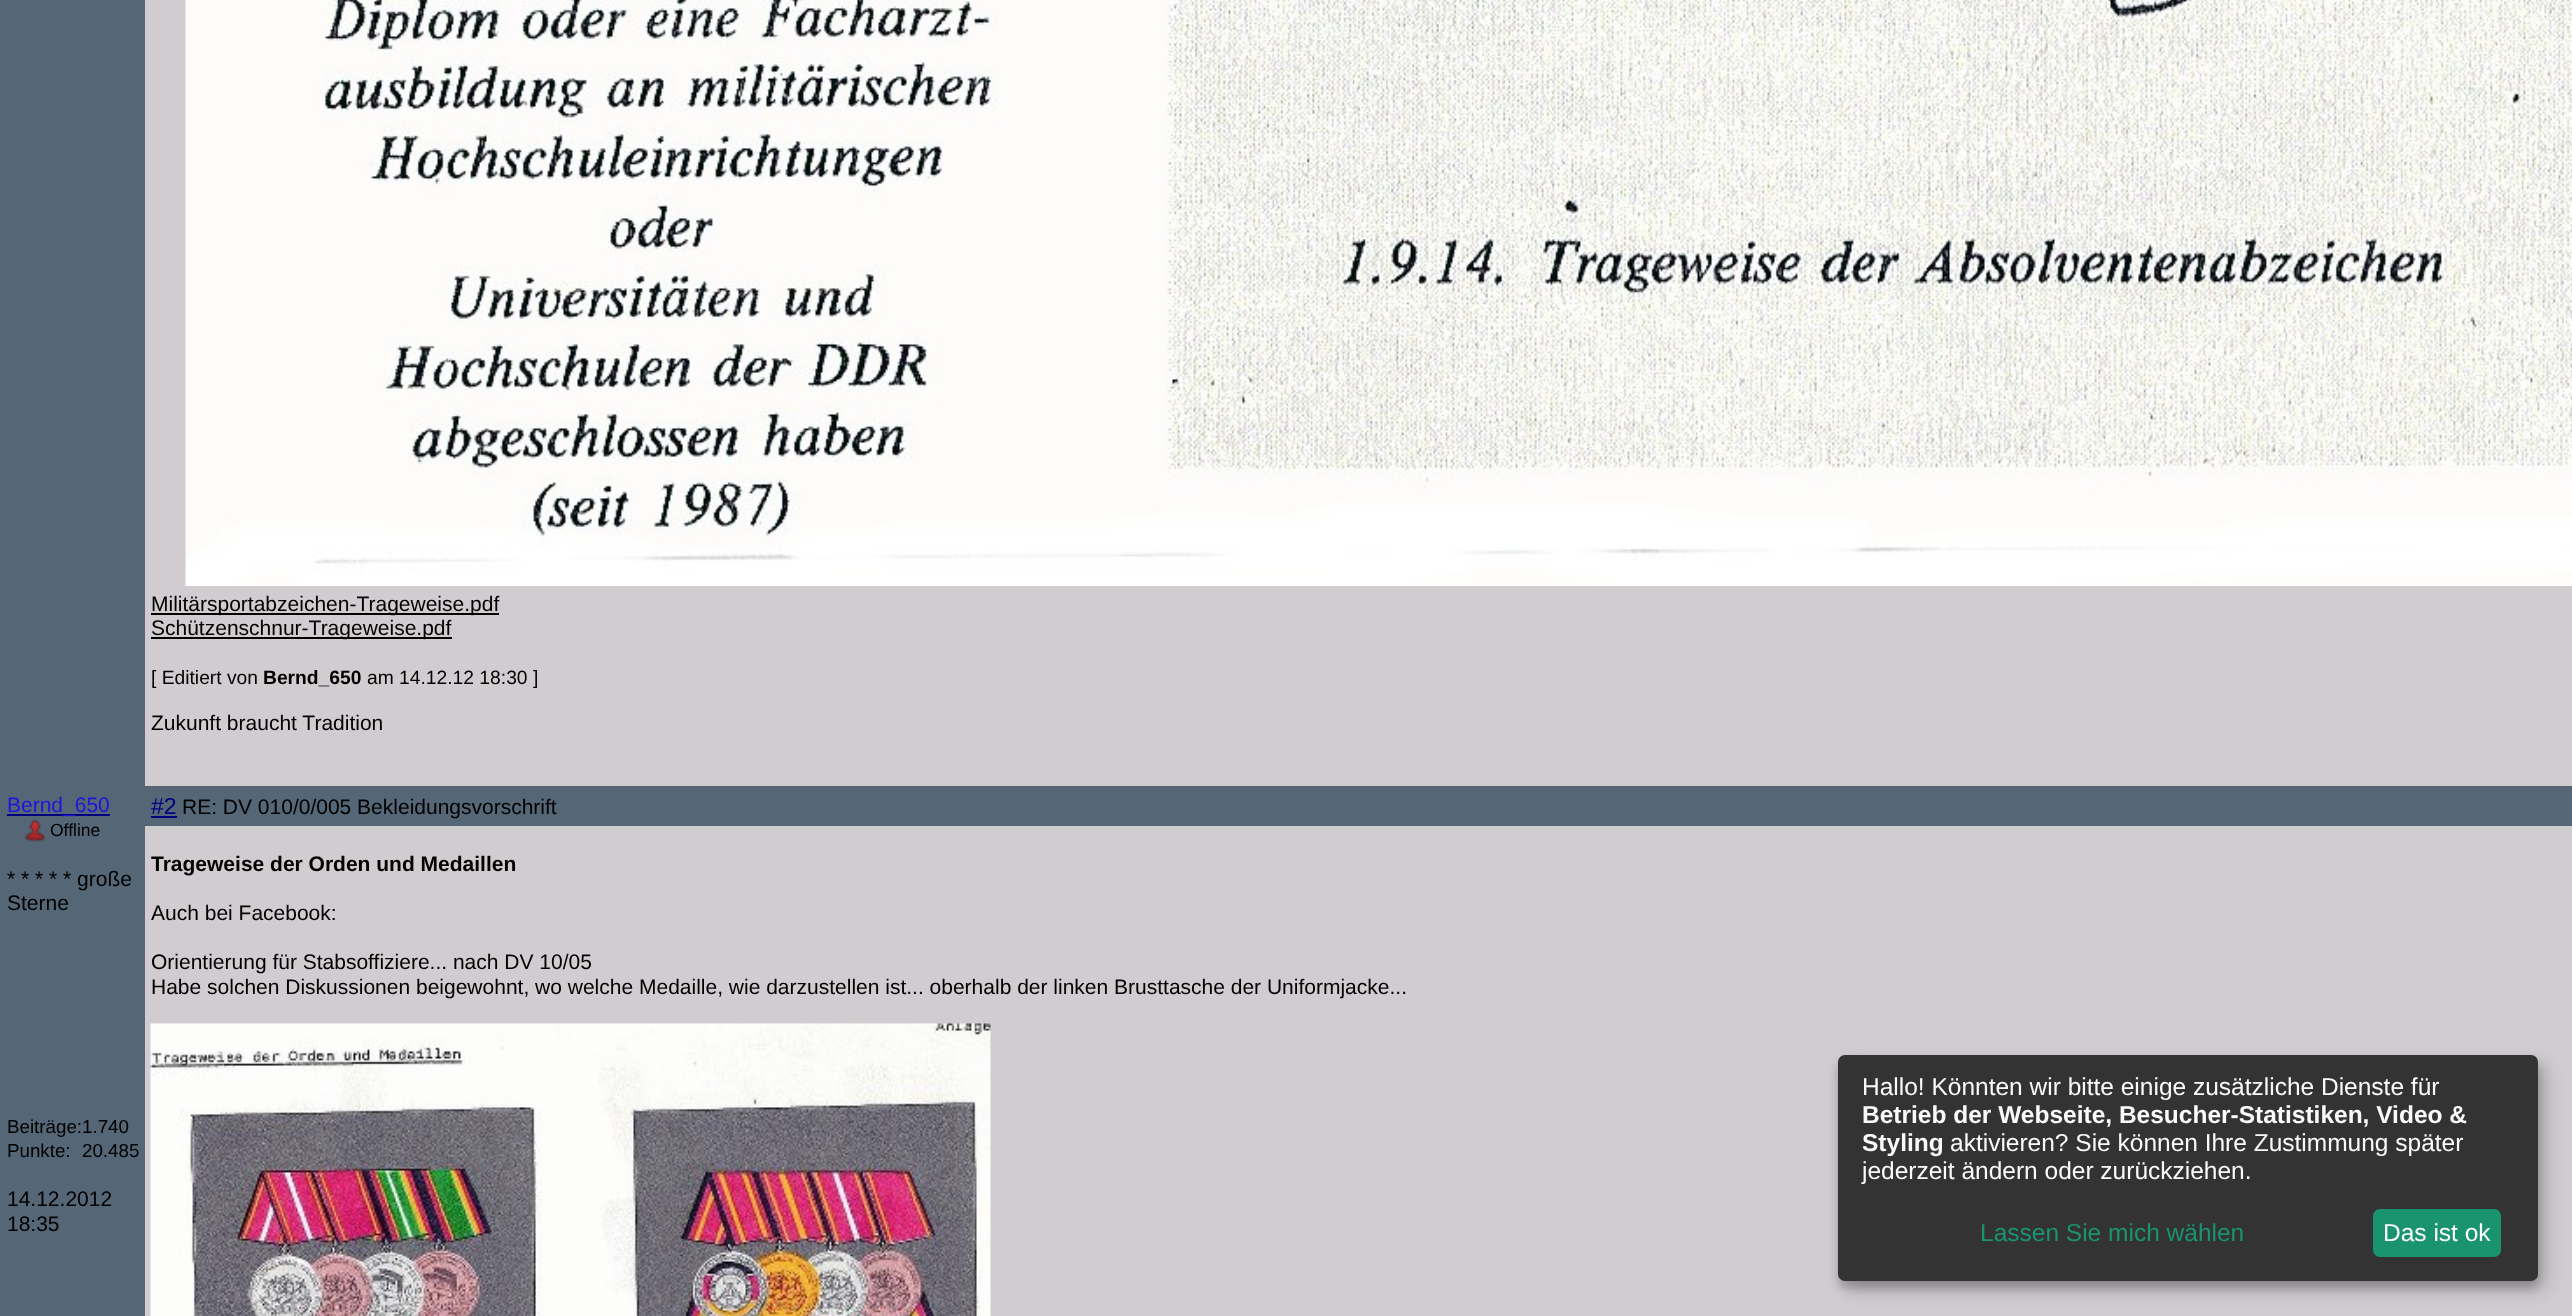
<?xml version="1.0" encoding="UTF-8"?>
<svg xmlns="http://www.w3.org/2000/svg" xmlns:xlink="http://www.w3.org/1999/xlink" width="2572" height="1316">
  <rect width="100%" height="100%" fill="#556677" />
  <rect x="145" width="2427" height="786" fill="#d0ccd0" />
  <image x="185" y="0" width="2387" height="586" xlink:href="image1.png" />
  <rect x="151" y="613" width="348" height="2" fill="#000000" />
  <rect x="151" y="637" width="301" height="2" fill="#000000" />
  <rect x="7" y="814" width="103" height="2" fill="#000080" />
  <image x="24" y="820" width="22" height="22" xlink:href="image2.png" />
  <rect x="151" y="816" width="26" height="2" fill="#000080" />
  <rect x="145" y="826" width="2427" height="490" fill="#d0ccd0" />
  <image x="150" y="1023" width="841" height="293" xlink:href="image3.png" />
  <rect x="1846" y="1064" width="700" height="226" rx="7" fill="#000000" fill-opacity="0.19" filter="blur(9px)" />
  <rect x="1838" y="1062" width="700" height="226" rx="7" fill="#000000" fill-opacity="0.2" filter="blur(5px)" />
  <rect x="1838" y="1055" width="700" height="226" rx="7" fill="#333333" />
  <rect x="2373" y="1209" width="128" height="48" rx="7" fill="#1a936f" />
  <text x="151" y="611" style="font-family: Liberation Sans; font-size: 21px; fill: #000000">Militärsportabzeichen-Trageweise.pdf</text>
  <text x="151" y="635" style="font-family: Liberation Sans; font-size: 21px; fill: #000000">Schützenschnur-Trageweise.pdf</text>
  <text x="151" y="684" style="font-family: Liberation Sans; font-size: 19.25px; fill: #000000">[ Editiert von</text>
  <text x="263" y="684" style="font-family: Liberation Sans; font-size: 19.25px; font-weight: bold; fill: #000000">Bernd_650</text>
  <text x="367" y="684" style="font-family: Liberation Sans; font-size: 19.25px; fill: #000000">am 14.12.12 18:30 ]</text>
  <text x="151" y="730" style="font-family: Liberation Sans; font-size: 21px; fill: #000000">Zukunft braucht Tradition</text>
  <text x="7" y="812" style="font-family: Liberation Sans; font-size: 21px; fill: #1e14db">Bernd_650</text>
  <text x="50" y="836" style="font-family: Liberation Sans; font-size: 17.5px; fill: #000000">Offline</text>
  <text x="7" y="886" style="font-family: Liberation Sans; font-size: 21px; fill: #000000">* * * * * große</text>
  <text x="7" y="910" style="font-family: Liberation Sans; font-size: 21px; fill: #000000">Sterne</text>
  <text x="7" y="1133" style="font-family: Liberation Sans; font-size: 18.75px; fill: #000000">Beiträge:1.740</text>
  <text x="7" y="1157" style="font-family: Liberation Sans; font-size: 18.75px; fill: #000000">Punkte:</text>
  <text x="82" y="1157" style="font-family: Liberation Sans; font-size: 18.75px; fill: #000000">20.485</text>
  <text x="7" y="1206" style="font-family: Liberation Sans; font-size: 21px; fill: #000000">14.12.2012</text>
  <text x="7" y="1231" style="font-family: Liberation Sans; font-size: 21px; fill: #000000">18:35</text>
  <text x="151" y="814" style="font-family: Liberation Sans; font-size: 23px; fill: #000080">#2</text>
  <text x="182" y="814" style="font-family: Liberation Sans; font-size: 21px; fill: #000000">RE: DV 010/0/005 Bekleidungsvorschrift</text>
  <text x="151" y="871" style="font-family: Liberation Sans; font-size: 21px; font-weight: bold; fill: #000000">Trageweise der Orden und Medaillen</text>
  <text x="151" y="920" style="font-family: Liberation Sans; font-size: 21px; fill: #000000">Auch bei Facebook:</text>
  <text x="151" y="969" style="font-family: Liberation Sans; font-size: 21px; fill: #000000">Orientierung für Stabsoffiziere... nach DV 10/05</text>
  <text x="151" y="994" style="font-family: Liberation Sans; font-size: 21px; fill: #000000">Habe solchen Diskussionen beigewohnt, wo welche Medaille, wie darzustellen ist... oberhalb der linken Brusttasche der Uniformjacke...</text>
  <text x="1862" y="1095" style="font-family: Liberation Sans; font-size: 24.5px; fill: #fafafa">Hallo! Könnten wir bitte einige zusätzliche Dienste für</text>
  <text x="1862" y="1123" style="font-family: Liberation Sans; font-size: 24.5px; font-weight: bold; fill: #fafafa">Betrieb der Webseite, Besucher-Statistiken, Video &amp;</text>
  <text x="1862" y="1151" style="font-family: Liberation Sans; font-size: 24.5px; font-weight: bold; fill: #fafafa">Styling</text>
  <text x="1950" y="1151" style="font-family: Liberation Sans; font-size: 24.5px; fill: #fafafa">aktivieren? Sie können Ihre Zustimmung später</text>
  <text x="1862" y="1179" style="font-family: Liberation Sans; font-size: 24.5px; fill: #fafafa">jederzeit ändern oder zurückziehen.</text>
  <text x="1980" y="1241" style="font-family: Liberation Sans; font-size: 24.5px; fill: #1a936f">Lassen Sie mich wählen</text>
  <text x="2383" y="1241" style="font-family: Liberation Sans; font-size: 24.5px; fill: #fafafa">Das ist ok</text>
</svg>
